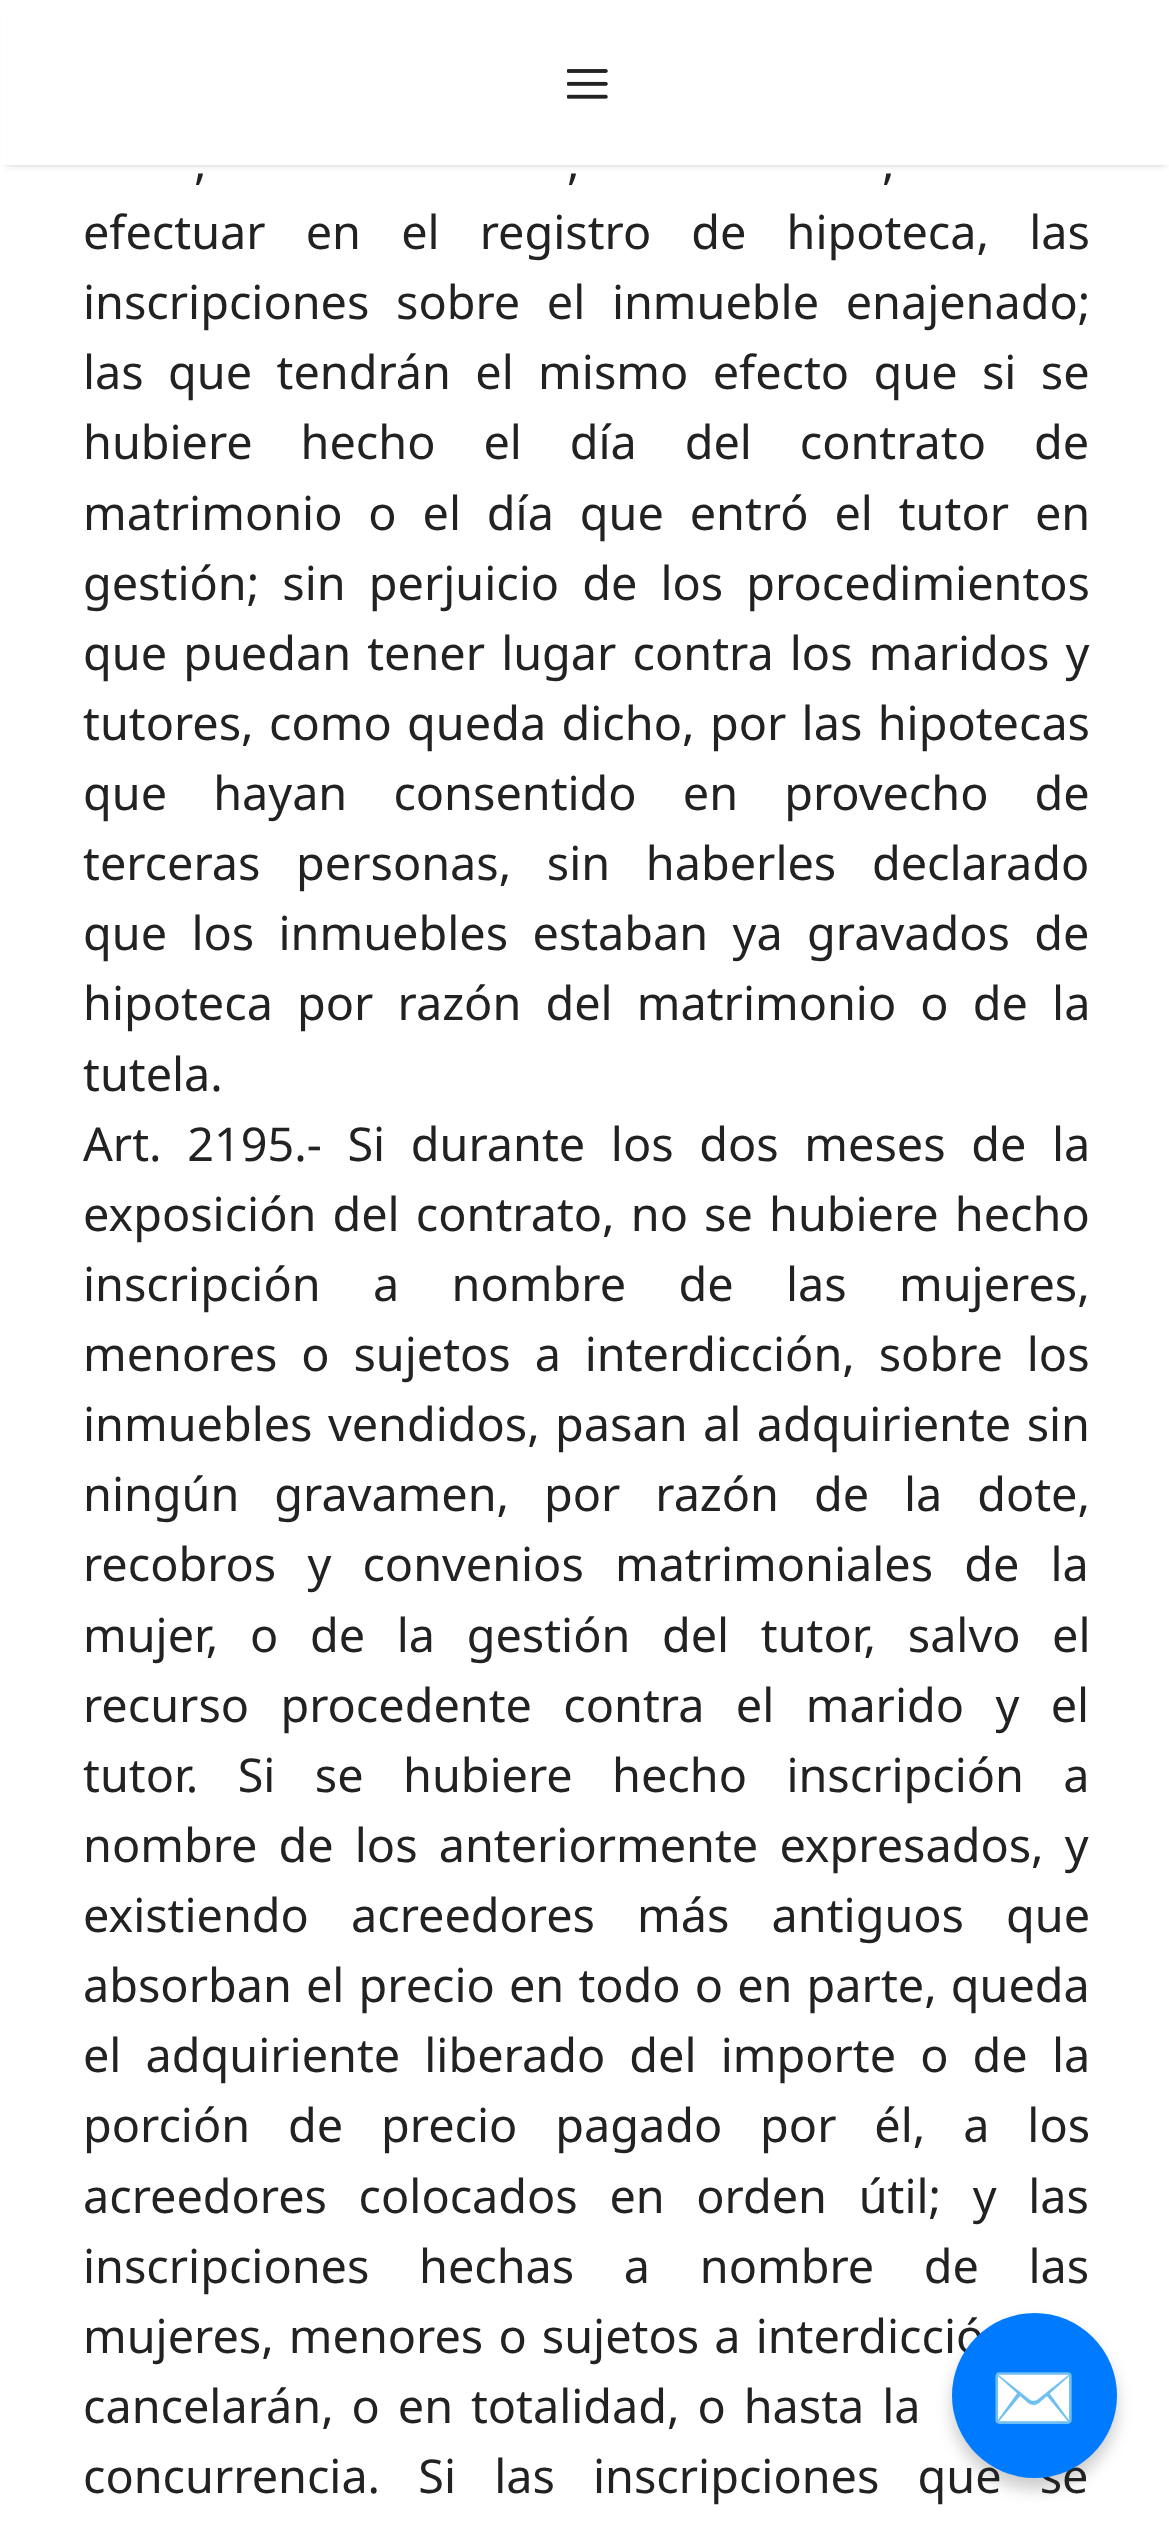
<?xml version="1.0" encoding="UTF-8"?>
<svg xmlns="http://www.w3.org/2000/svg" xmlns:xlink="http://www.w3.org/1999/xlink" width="1169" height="2531">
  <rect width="100%" height="100%" fill="#ffffff" />
  <rect x="6" y="11" width="1160" height="154" fill="#000000" fill-opacity="0.2" filter="blur(3px)" />
  <rect x="1" y="6" width="1168" height="159" fill="#ffffff" />
  <image x="567" y="69" width="41" height="30" xlink:href="image1.png" />
  <rect x="952" y="2324" width="165" height="165" rx="82.5" fill="#000000" fill-opacity="0.2" filter="blur(8px)" />
  <text x="194" y="179" word-spacing="4" style="font-family: Noto Sans; font-size: 46.75px; fill: #222222">,</text>
  <text x="567" y="179" word-spacing="4" style="font-family: Noto Sans; font-size: 46.75px; fill: #222222">,</text>
  <text x="882" y="179" word-spacing="4" style="font-family: Noto Sans; font-size: 46.75px; fill: #222222">,</text>
  <text x="83" y="249" word-spacing="28" style="font-family: Noto Sans; font-size: 46.75px; fill: #222222">efectuar en el registro de hipoteca, las</text>
  <text x="83" y="319" word-spacing="14.5" style="font-family: Noto Sans; font-size: 46.75px; fill: #222222">inscripciones sobre el inmueble enajenado;</text>
  <text x="83" y="389" word-spacing="12.25" style="font-family: Noto Sans; font-size: 46.75px; fill: #222222">las que tendrán el mismo efecto que si se</text>
  <text x="83" y="459" word-spacing="35.75" style="font-family: Noto Sans; font-size: 46.75px; fill: #222222">hubiere hecho el día del contrato de</text>
  <text x="83" y="530" word-spacing="13.75" style="font-family: Noto Sans; font-size: 46.75px; fill: #222222">matrimonio o el día que entró el tutor en</text>
  <text x="83" y="600" word-spacing="11" style="font-family: Noto Sans; font-size: 46.75px; fill: #222222">gestión; sin perjuicio de los procedimientos</text>
  <text x="83" y="670" word-spacing="4" style="font-family: Noto Sans; font-size: 46.75px; fill: #222222">que puedan tener lugar contra los maridos y</text>
  <text x="83" y="740" word-spacing="3.25" style="font-family: Noto Sans; font-size: 46.75px; fill: #222222">tutores, como queda dicho, por las hipotecas</text>
  <text x="83" y="810" word-spacing="34" style="font-family: Noto Sans; font-size: 46.75px; fill: #222222">que hayan consentido en provecho de</text>
  <text x="83" y="880" word-spacing="23.5" style="font-family: Noto Sans; font-size: 46.75px; fill: #222222">terceras personas, sin haberles declarado</text>
  <text x="83" y="950" word-spacing="12.25" style="font-family: Noto Sans; font-size: 46.75px; fill: #222222">que los inmuebles estaban ya gravados de</text>
  <text x="83" y="1020" word-spacing="12" style="font-family: Noto Sans; font-size: 46.75px; fill: #222222">hipoteca por razón del matrimonio o de la</text>
  <text x="83" y="1091" style="font-family: Noto Sans; font-size: 46.75px; fill: #222222">tutela.</text>
  <text x="83" y="1161" word-spacing="13.5" style="font-family: Noto Sans; font-size: 46.75px; fill: #222222">Art. 2195.- Si durante los dos meses de la</text>
  <text x="83" y="1231" word-spacing="4" style="font-family: Noto Sans; font-size: 46.75px; fill: #222222">exposición del contrato, no se hubiere hecho</text>
  <text x="83" y="1301" word-spacing="40.25" style="font-family: Noto Sans; font-size: 46.75px; fill: #222222">inscripción a nombre de las mujeres,</text>
  <text x="83" y="1371" word-spacing="11.75" style="font-family: Noto Sans; font-size: 46.75px; fill: #222222">menores o sujetos a interdicción, sobre los</text>
  <text x="83" y="1441" word-spacing="3.25" style="font-family: Noto Sans; font-size: 46.75px; fill: #222222">inmuebles vendidos, pasan al adquiriente sin</text>
  <text x="83" y="1511" word-spacing="22.75" style="font-family: Noto Sans; font-size: 46.75px; fill: #222222">ningún gravamen, por razón de la dote,</text>
  <text x="83" y="1581" word-spacing="19" style="font-family: Noto Sans; font-size: 46.75px; fill: #222222">recobros y convenios matrimoniales de la</text>
  <text x="83" y="1652" word-spacing="19.5" style="font-family: Noto Sans; font-size: 46.75px; fill: #222222">mujer, o de la gestión del tutor, salvo el</text>
  <text x="83" y="1722" word-spacing="19.25" style="font-family: Noto Sans; font-size: 46.75px; fill: #222222">recurso procedente contra el marido y el</text>
  <text x="83" y="1792" word-spacing="27.25" style="font-family: Noto Sans; font-size: 46.75px; fill: #222222">tutor. Si se hubiere hecho inscripción a</text>
  <text x="83" y="1862" word-spacing="9" style="font-family: Noto Sans; font-size: 46.75px; fill: #222222">nombre de los anteriormente expresados, y</text>
  <text x="83" y="1932" word-spacing="30" style="font-family: Noto Sans; font-size: 46.75px; fill: #222222">existiendo acreedores más antiguos que</text>
  <text x="83" y="2002" word-spacing="2" style="font-family: Noto Sans; font-size: 46.75px; fill: #222222">absorban el precio en todo o en parte, queda</text>
  <text x="83" y="2072" word-spacing="12" style="font-family: Noto Sans; font-size: 46.75px; fill: #222222">el adquiriente liberado del importe o de la</text>
  <text x="83" y="2142" word-spacing="25.75" style="font-family: Noto Sans; font-size: 46.75px; fill: #222222">porción de precio pagado por él, a los</text>
  <text x="83" y="2213" word-spacing="19.5" style="font-family: Noto Sans; font-size: 46.75px; fill: #222222">acreedores colocados en orden útil; y las</text>
  <text x="83" y="2283" word-spacing="37.5" style="font-family: Noto Sans; font-size: 46.75px; fill: #222222">inscripciones hechas a nombre de las</text>
  <text x="83" y="2353" word-spacing="3" style="font-family: Noto Sans; font-size: 46.75px; fill: #222222">mujeres, menores o sujetos a interdicció</text>
  <text x="83" y="2423" word-spacing="5.75" style="font-family: Noto Sans; font-size: 46.75px; fill: #222222">cancelarán, o en totalidad, o hasta la</text>
  <text x="83" y="2493" word-spacing="26" style="font-family: Noto Sans; font-size: 46.75px; fill: #222222">concurrencia. Si las inscripciones que se</text>
  <circle cx="1034.5" cy="2395.5" r="82.5" fill="#007bff" />
  <text x="990" y="2422" style="font-family: Noto Color Emoji; font-size: 70px; fill: #ffffff">✉️</text>
</svg>
